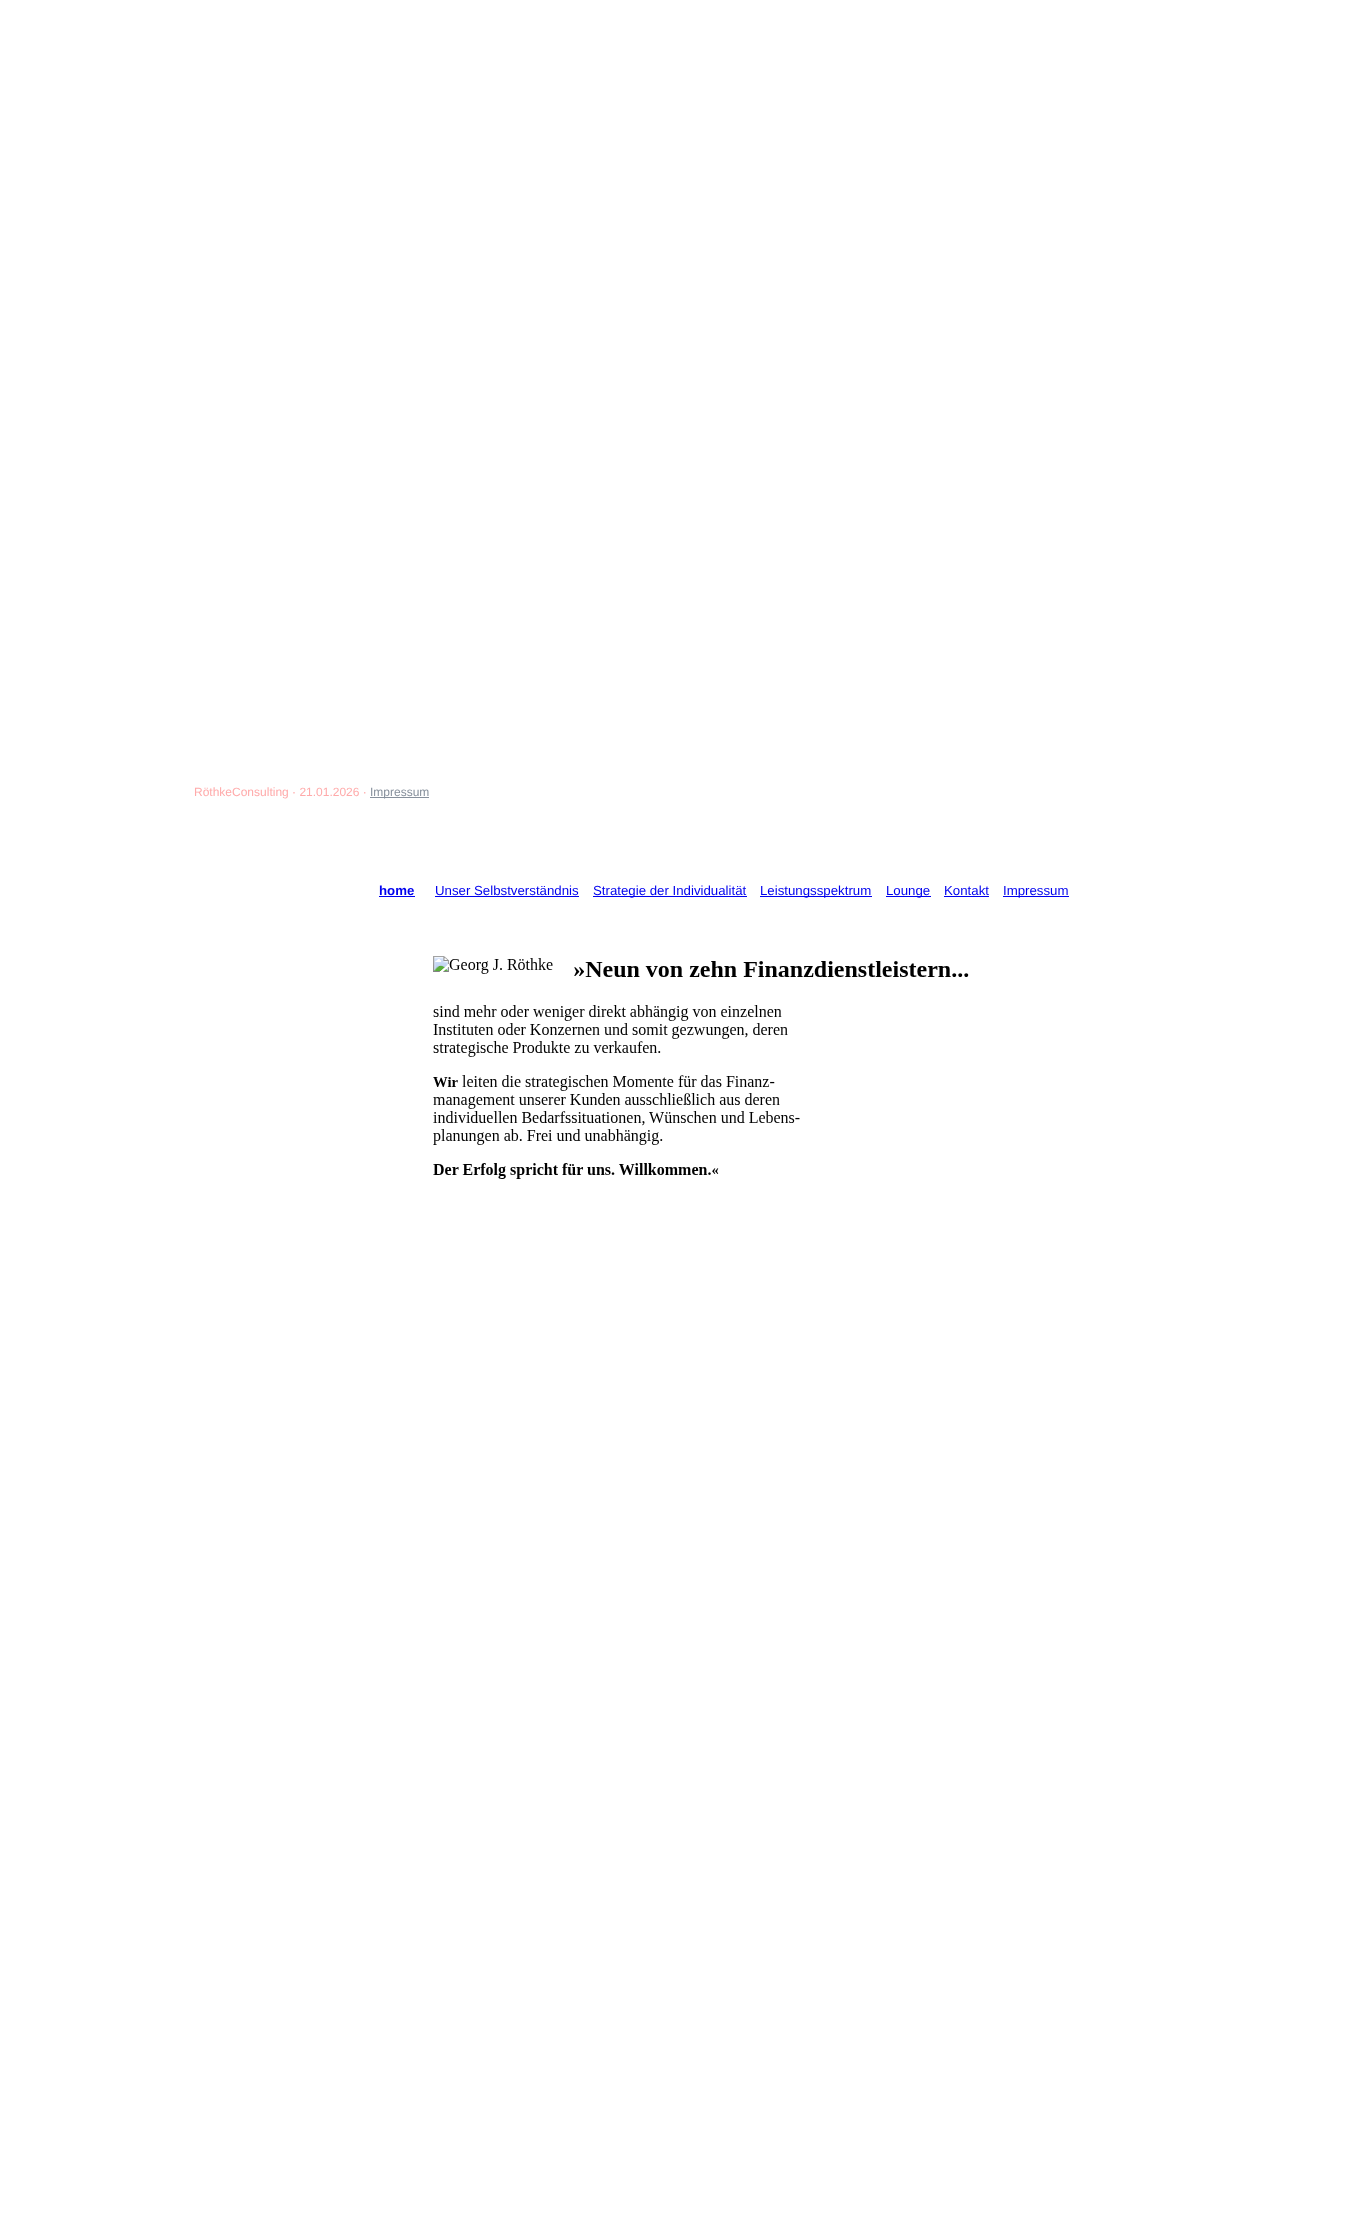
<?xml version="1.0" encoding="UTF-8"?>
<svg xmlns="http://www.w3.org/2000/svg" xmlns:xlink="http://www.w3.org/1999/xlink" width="1347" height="2217">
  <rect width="100%" height="100%" fill="#ffffff" />
  <rect x="370" y="797" width="59" height="1" fill="#87909c" />
  <rect x="379" y="896" width="36" height="1" fill="#0000ee" />
  <rect x="435" y="896" width="144" height="1" fill="#0000ee" />
  <rect x="593" y="896" width="154" height="1" fill="#0000ee" />
  <rect x="760" y="896" width="112" height="1" fill="#0000ee" />
  <rect x="886" y="896" width="45" height="1" fill="#0000ee" />
  <rect x="944" y="896" width="45" height="1" fill="#0000ee" />
  <rect x="1003" y="896" width="66" height="1" fill="#0000ee" />
  <image x="433" y="956" width="536" height="223" xlink:href="image1.png" />
  <text x="194" y="796" style="font-family: Liberation Sans; font-size: 12px; fill: #ffaaaa">RöthkeConsulting · 21.01.2026 ·</text>
  <text x="370" y="796" style="font-family: Liberation Sans; font-size: 12px; fill: #87909c">Impressum</text>
  <text x="379" y="895" style="font-family: Liberation Sans; font-size: 13.25px; font-weight: bold; fill: #0000ee">home</text>
  <text x="435" y="895" style="font-family: Liberation Sans; font-size: 13.25px; fill: #0000ee">Unser Selbstverständnis</text>
  <text x="593" y="895" style="font-family: Liberation Sans; font-size: 13.25px; fill: #0000ee">Strategie der Individualität</text>
  <text x="760" y="895" style="font-family: Liberation Sans; font-size: 13.25px; fill: #0000ee">Leistungsspektrum</text>
  <text x="886" y="895" style="font-family: Liberation Sans; font-size: 13.25px; fill: #0000ee">Lounge</text>
  <text x="944" y="895" style="font-family: Liberation Sans; font-size: 13.25px; fill: #0000ee">Kontakt</text>
  <text x="1003" y="895" style="font-family: Liberation Sans; font-size: 13.25px; fill: #0000ee">Impressum</text>
</svg>
